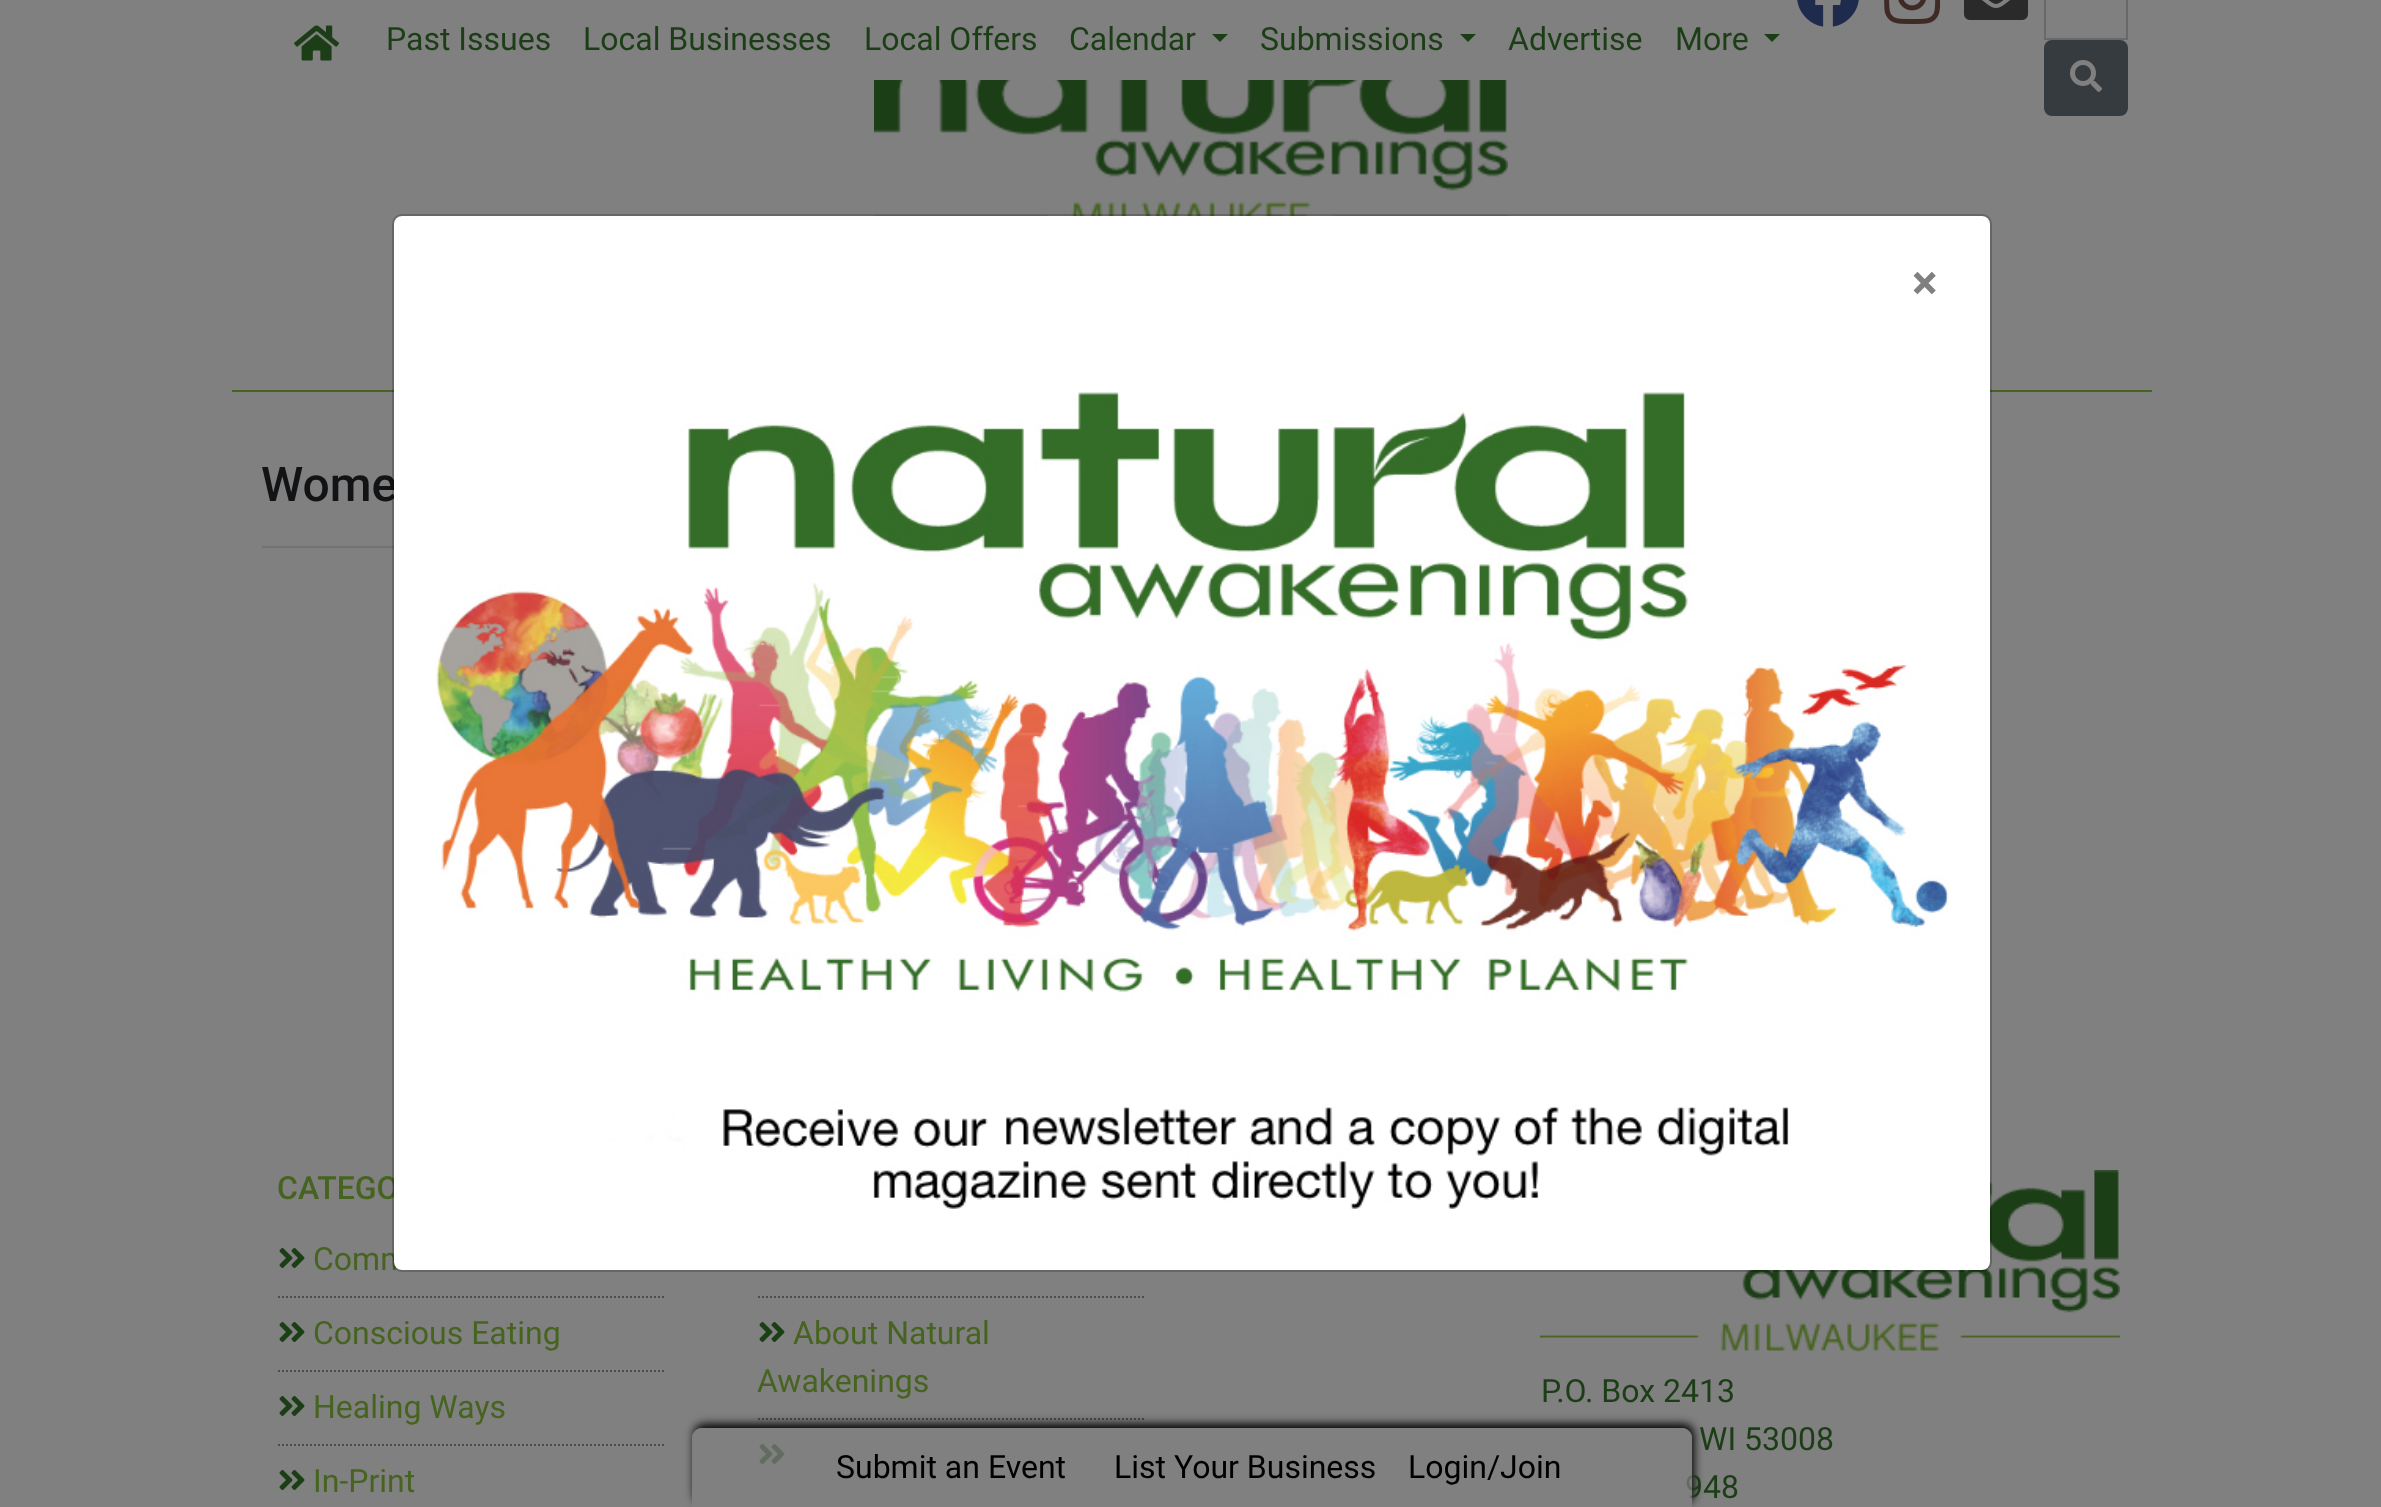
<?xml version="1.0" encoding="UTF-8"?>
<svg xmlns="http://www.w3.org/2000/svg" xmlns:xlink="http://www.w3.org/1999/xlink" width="2381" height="1507">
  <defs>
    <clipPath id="clip1"><path d="M 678 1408 h 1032 v 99 h -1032 z m 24 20 h 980 c 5.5 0 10 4.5 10 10 v 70 h -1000 v -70 c 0 -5.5 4.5 -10 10 -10 z" clip-rule="evenodd" /></clipPath>
  </defs>
  <rect width="100%" height="100%" fill="#808080" />
  <image x="294" y="25" width="46" height="36" xlink:href="image1.png" />
  <path d="M 1212 34 h 16 l -8 8 z" fill="#1c3e16" />
  <path d="M 1460 34 h 16 l -8 8 z" fill="#1c3e16" />
  <path d="M 1764 34 h 16 l -8 8 z" fill="#1c3e16" />
  <image x="1797" y="0" width="62" height="27" xlink:href="image2.png" />
  <image x="1884" y="0" width="57" height="24" xlink:href="image3.png" />
  <image x="1964" y="0" width="64" height="20" xlink:href="image4.png" />
  <rect x="2045" y="-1" width="82" height="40" fill="none" stroke="#676a6d" stroke-width="2" />
  <rect x="2045" y="41" width="82" height="74" rx="7" fill="#363b3f" stroke="#363b3f" stroke-width="2" />
  <image x="2070" y="60" width="32" height="32" xlink:href="image5.png" />
  <image x="874" y="80" width="634" height="136" xlink:href="image6.png" />
  <rect x="232" y="390" width="1920" height="2" fill="#476320" />
  <rect x="262" y="546" width="132" height="2" fill="#737373" />
  <path d="M 278 1297 h 388" fill="none" stroke="#4d4d4d" stroke-width="2" stroke-dasharray="2 2" />
  <image x="279" y="1248" width="26" height="20" xlink:href="image8.png" />
  <path d="M 278 1371 h 388" fill="none" stroke="#4d4d4d" stroke-width="2" stroke-dasharray="2 2" />
  <image x="279" y="1322" width="26" height="20" xlink:href="image8.png" />
  <path d="M 278 1445 h 388" fill="none" stroke="#4d4d4d" stroke-width="2" stroke-dasharray="2 2" />
  <image x="279" y="1396" width="26" height="20" xlink:href="image8.png" />
  <image x="279" y="1470" width="26" height="20" xlink:href="image8.png" />
  <path d="M 758 1297 h 388" fill="none" stroke="#4d4d4d" stroke-width="2" stroke-dasharray="2 2" />
  <path d="M 758 1419 h 388" fill="none" stroke="#4d4d4d" stroke-width="2" stroke-dasharray="2 2" />
  <image x="759" y="1322" width="26" height="20" xlink:href="image8.png" />
  <image x="759" y="1444" width="26" height="20" xlink:href="image8.png" />
  <image x="1540" y="1170" width="580" height="182" xlink:href="image9.png" />
  <g clip-path="url(#clip1)">
    <rect x="694" y="1424" width="1000" height="80" rx="10" fill="#000000" filter="blur(5px)" />
  </g>
  <text x="386" y="50" style="font-family: Roboto; font-size: 32px; fill: #1c3e16">Past Issues</text>
  <text x="583" y="50" style="font-family: Roboto; font-size: 32px; fill: #1c3e16">Local Businesses</text>
  <text x="864" y="50" style="font-family: Roboto; font-size: 32px; fill: #1c3e16">Local Offers</text>
  <text x="1069" y="50" style="font-family: Roboto; font-size: 32px; fill: #1c3e16">Calendar</text>
  <text x="1260" y="50" style="font-family: Roboto; font-size: 32px; fill: #1c3e16">Submissions</text>
  <text x="1508" y="50" style="font-family: Roboto; font-size: 32px; fill: #1c3e16">Advertise</text>
  <text x="1675" y="50" style="font-family: Roboto; font-size: 32px; fill: #1c3e16">More</text>
  <text x="261" y="501" style="font-family: Roboto; font-size: 48px; font-weight: 500; fill: #111315">Wome</text>
  <text x="277" y="1199" style="font-family: Roboto; font-size: 32px; font-weight: 500; fill: #476320">CATEGO</text>
  <text x="313" y="1270" style="font-family: Roboto; font-size: 32px; fill: #476320">Comm</text>
  <rect x="394" y="216" width="1596" height="1054" rx="8" fill="#ffffff" />
  <rect x="393" y="215" width="1598" height="1056" rx="9" fill="none" stroke="#000000" stroke-opacity="0.2" stroke-width="2" />
  <image x="436" y="392" width="1513" height="817" xlink:href="image7.png" />
  <text x="1912" y="299" style="font-family: Roboto; font-size: 48px; font-weight: bold; fill: #808080">×</text>
  <text x="313" y="1344" style="font-family: Roboto; font-size: 32px; fill: #476320">Conscious Eating</text>
  <text x="313" y="1418" style="font-family: Roboto; font-size: 32px; fill: #476320">Healing Ways</text>
  <text x="313" y="1492" style="font-family: Roboto; font-size: 32px; fill: #476320">In-Print</text>
  <text x="793" y="1344" style="font-family: Roboto; font-size: 32px; fill: #476320">About Natural</text>
  <text x="757" y="1392" style="font-family: Roboto; font-size: 32px; fill: #476320">Awakenings</text>
  <text x="1541" y="1402" style="font-family: Roboto; font-size: 32px; fill: #1c3e16">P.O. Box 2413</text>
  <text x="1699" y="1450" style="font-family: Roboto; font-size: 32px; fill: #1c3e16">WI 53008</text>
  <text x="1685" y="1498" style="font-family: Roboto; font-size: 32px; fill: #1c3e16">948</text>
  <path d="M 702 1428 h 980 c 5.5 0 10 4.5 10 10 v 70 h -1000 v -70 c 0 -5.5 4.5 -10 10 -10 z" fill="#808080" fill-opacity="0.7" />
  <text x="836" y="1478" style="font-family: Roboto; font-size: 32px; fill: #000000">Submit an Event</text>
  <text x="1114" y="1478" style="font-family: Roboto; font-size: 32px; fill: #000000">List Your Business</text>
  <text x="1408" y="1478" style="font-family: Roboto; font-size: 32px; fill: #000000">Login/Join</text>
</svg>
